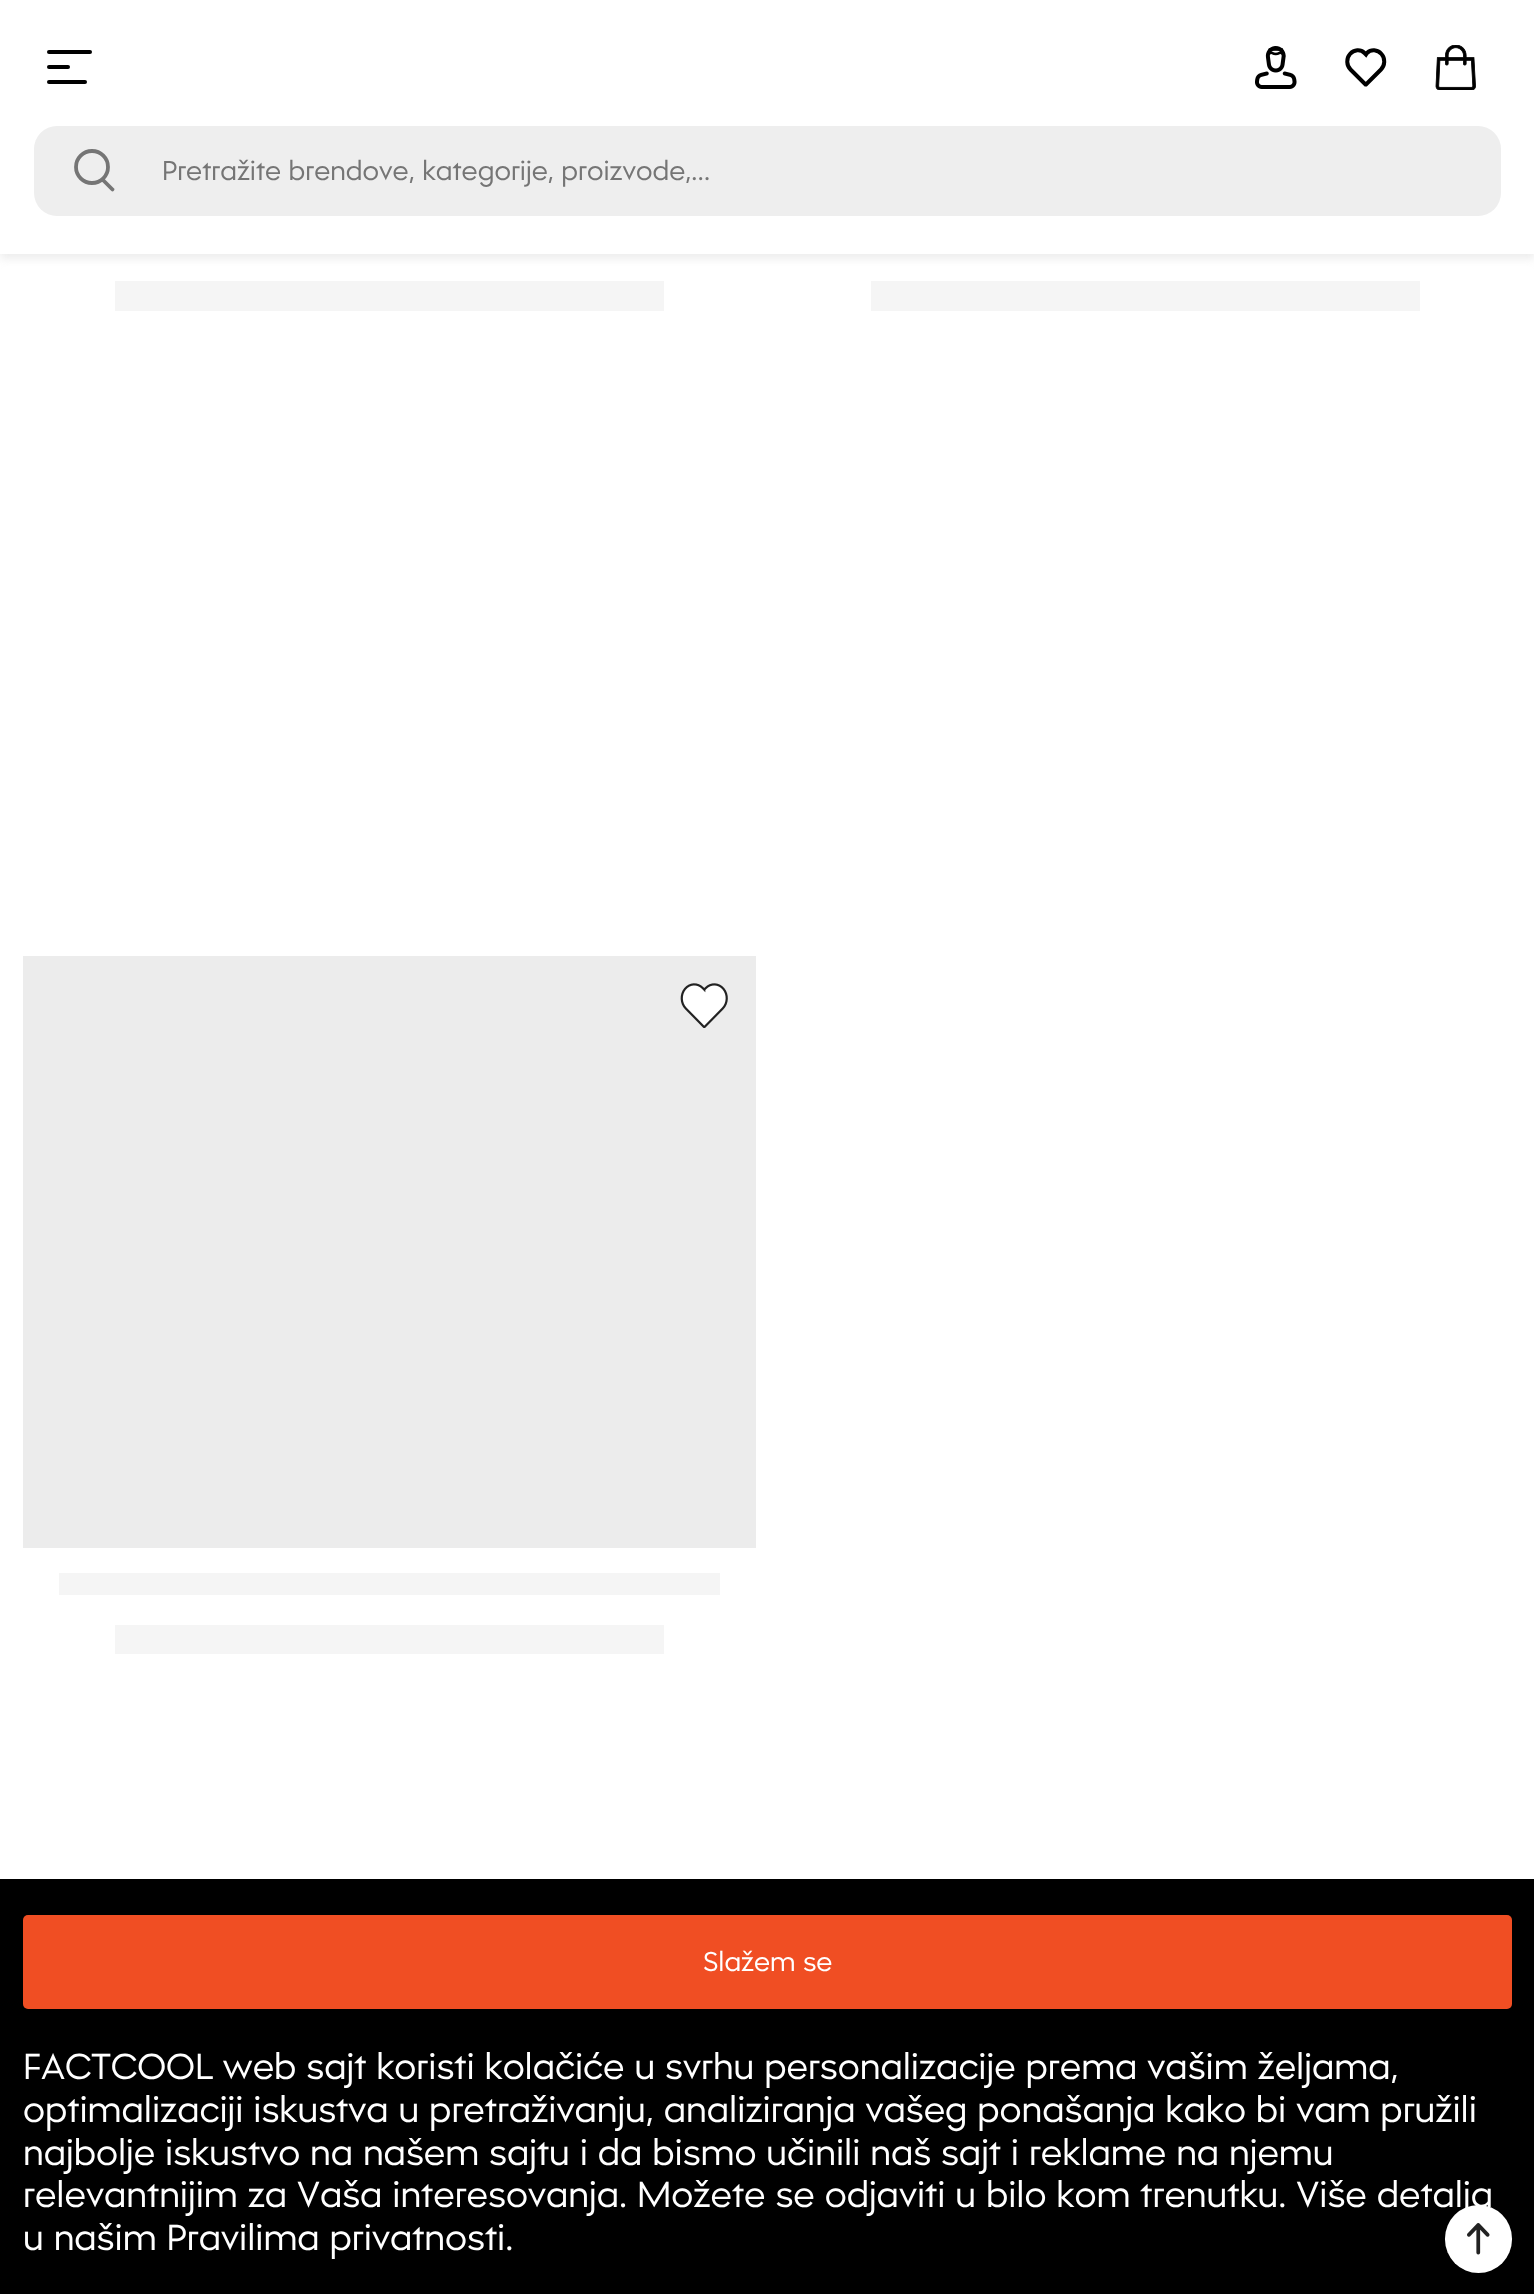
<?xml version="1.0" encoding="UTF-8"?>
<svg xmlns="http://www.w3.org/2000/svg" xmlns:xlink="http://www.w3.org/1999/xlink" width="1534" height="2294">
  <rect width="100%" height="100%" fill="#ffffff" />
  <rect y="5" width="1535" height="254" fill="#dcdcdc" fill-opacity="0.5" filter="blur(4.5px)" />
  <rect width="1534" height="254" fill="#ffffff" />
  <rect x="47" y="50" width="45" height="4" rx="2" fill="#000000" />
  <rect x="47" y="65" width="23" height="4" rx="2" fill="#000000" />
  <rect x="47" y="80" width="40" height="4" rx="2" fill="#000000" />
  <image x="1255" y="46" width="42" height="43" xlink:href="image1.png" />
  <path d="M 1366 54.5 l -1.5 -1.5 c -4 -4 -10.5 -3.5 -14.5 1 c -4 4.5 -3.5 11.5 0.5 15.5 l 15 15 h 0.5 l 15 -15 c 4 -4 4.5 -11 0.5 -15.5 c -4 -4.5 -10.5 -5 -14.5 -1 z" fill="none" stroke="#000000" stroke-width="4" stroke-linecap="round" />
  <image x="1435" y="45" width="41" height="45" xlink:href="image2.png" />
  <rect x="34" y="126" width="1467" height="90" rx="23" fill="#eeeeee" />
  <circle cx="92" cy="167" r="16" fill="none" stroke="#757575" stroke-width="3.8" />
  <path d="M 112.5 189.5 l -9.5 -9.5" fill="none" stroke="#757575" stroke-width="3.8" stroke-linecap="round" />
  <rect x="115" y="281" width="549" height="30" fill="#f5f5f5" />
  <rect x="871" y="281" width="549" height="30" fill="#f5f5f5" />
  <rect x="23" y="956" width="733" height="592" fill="#ececec" />
  <image x="680" y="983" width="48" height="45" xlink:href="image3.png" />
  <rect x="59" y="1573" width="661" height="22" fill="#f5f5f5" />
  <rect x="115" y="1625" width="549" height="29" fill="#f5f5f5" />
  <rect y="1879" width="1534" height="415" fill="#000000" />
  <rect x="23" y="1915" width="1489" height="94" rx="5" fill="#f04e23" />
  <rect x="1445" y="2205" width="67" height="68" rx="33.5" fill="#ffffff" />
  <image x="1467" y="2223" width="23" height="32" xlink:href="image4.png" />
  <text x="162" y="180" style="font-family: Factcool; font-size: 27px; fill: #757575">Pretražite brendove, kategorije, proizvode,…</text>
  <text x="703" y="1971" style="font-family: Factcool; font-size: 27px; fill: #ffffff">Slažem se</text>
  <text x="23" y="2079" style="font-family: Factcool; font-size: 36px; fill: #ffffff">FACTCOOL web sajt koristi kolačiće u svrhu personalizacije prema vašim željama,</text>
  <text x="23" y="2122" style="font-family: Factcool; font-size: 36px; fill: #ffffff">optimalizaciji iskustva u pretraživanju, analiziranja vašeg ponašanja kako bi vam pružili</text>
  <text x="23" y="2165" style="font-family: Factcool; font-size: 36px; fill: #ffffff">najbolje iskustvo na našem sajtu i da bismo učinili naš sajt i reklame na njemu</text>
  <text x="23" y="2207" style="font-family: Factcool; font-size: 36px; fill: #ffffff">relevantnijim za Vaša interesovanja. Možete se odjaviti u bilo kom trenutku. Više detalja</text>
  <text x="23" y="2250" style="font-family: Factcool; font-size: 36px; fill: #ffffff">u našim Pravilima privatnosti.</text>
</svg>
